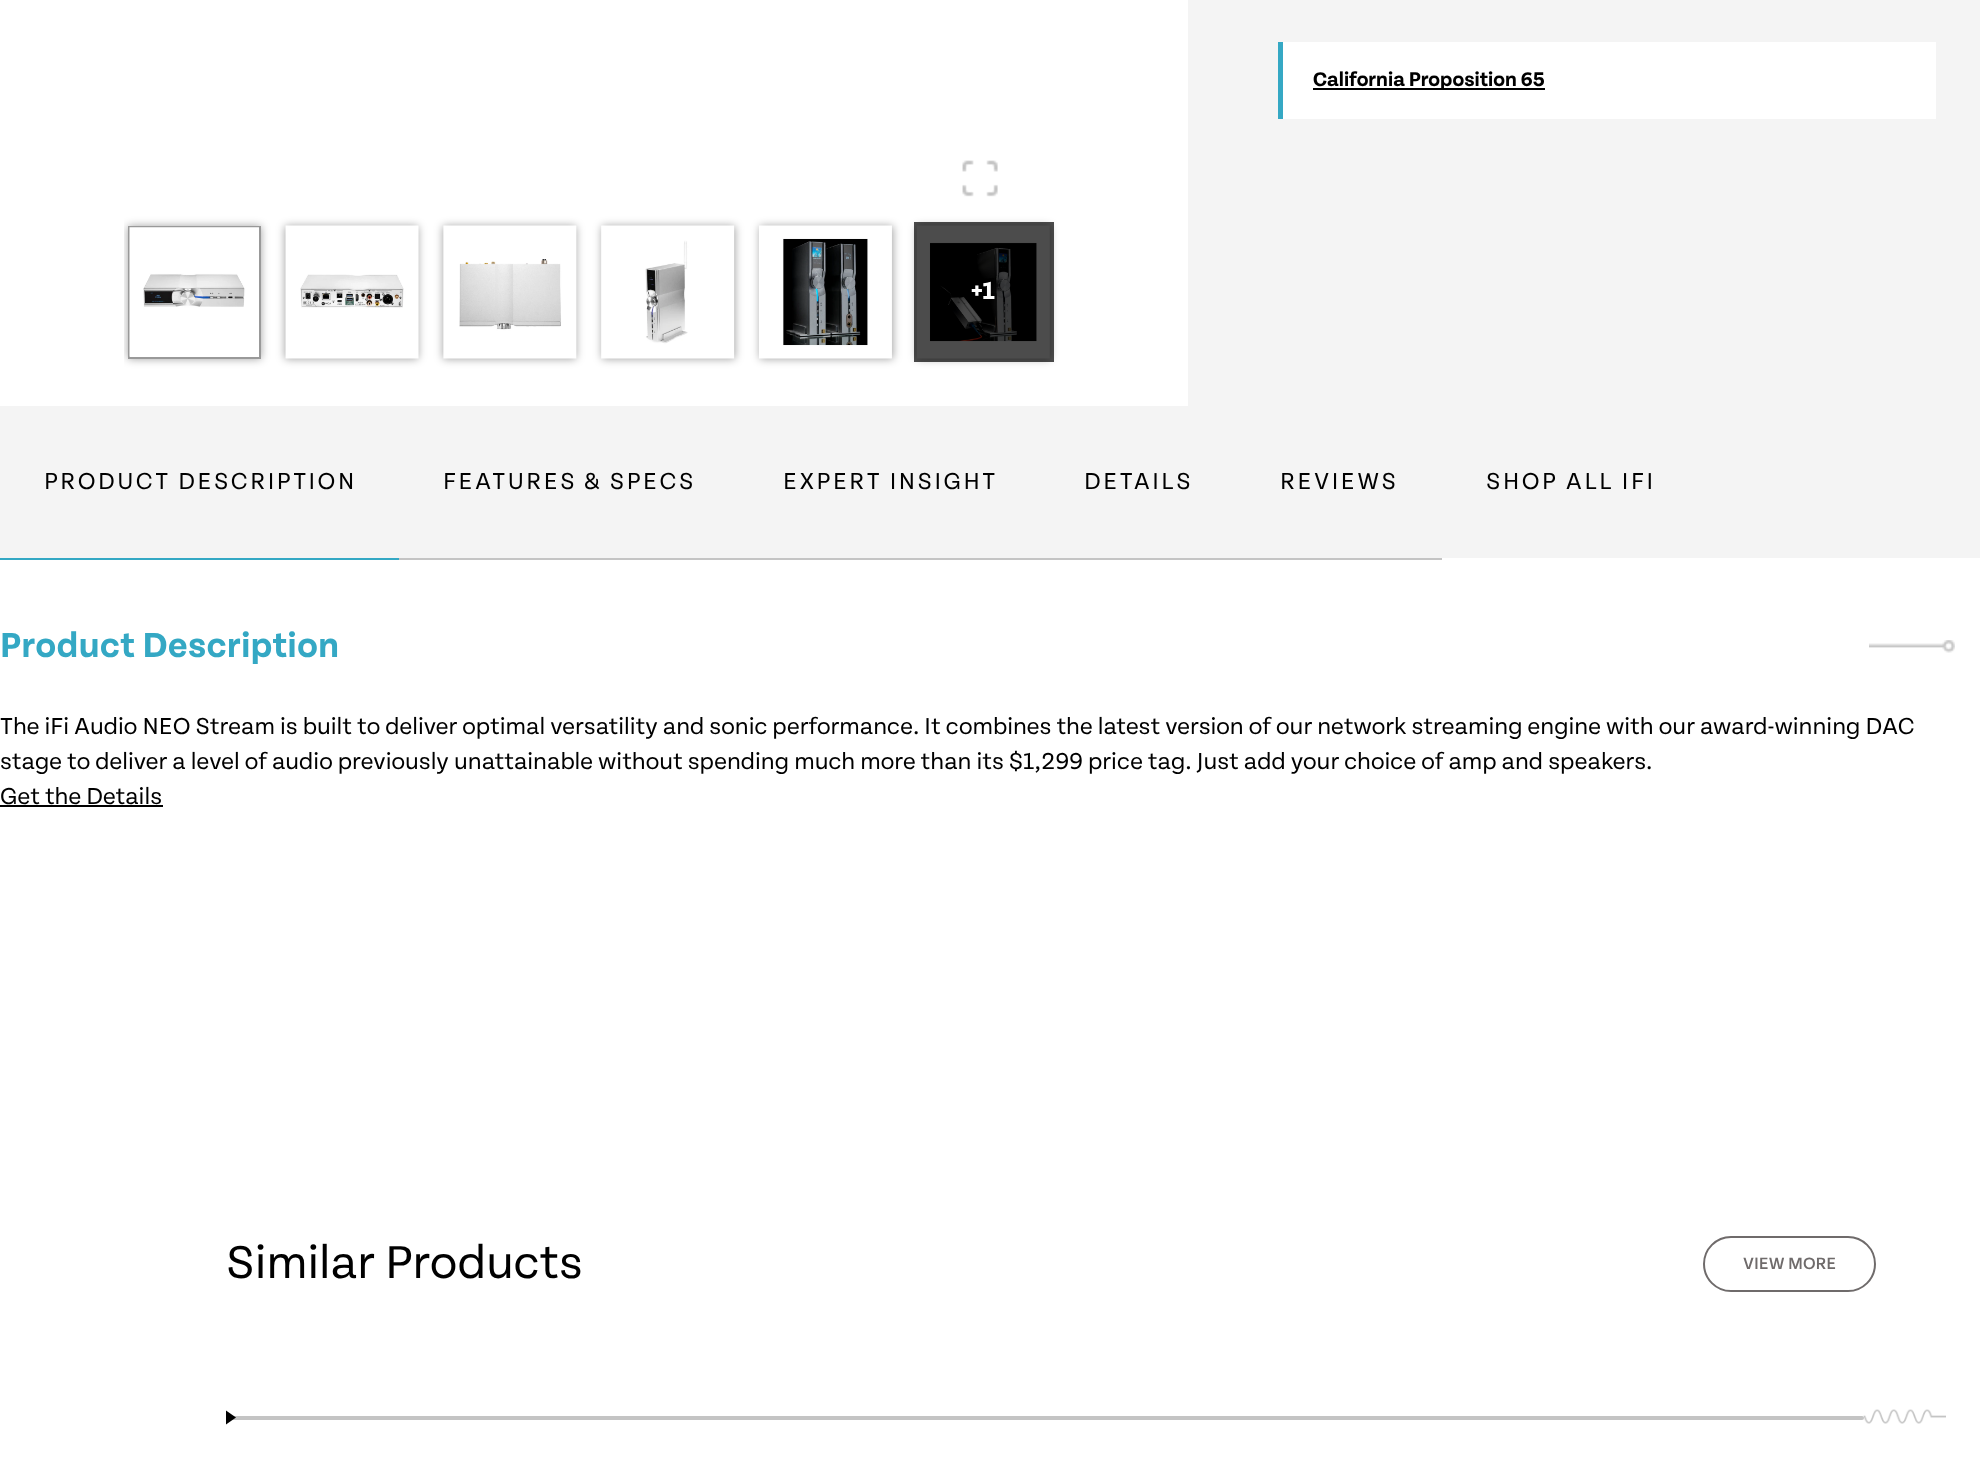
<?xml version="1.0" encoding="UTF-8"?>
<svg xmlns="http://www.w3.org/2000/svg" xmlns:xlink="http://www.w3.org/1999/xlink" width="1980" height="1469">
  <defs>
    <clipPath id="clip1"><rect x="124" y="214" width="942" height="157" /></clipPath>
    <clipPath id="clip2"><path d="M 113 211 h 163 v 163 h -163 z m 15 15 h 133 v 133 h -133 z" clip-rule="evenodd" /></clipPath>
  </defs>
  <rect width="100%" height="100%" fill="#f4f4f4" />
  <rect x="1283" y="42" width="653" height="77" fill="#ffffff" />
  <rect x="1278" y="42" width="5" height="77" fill="#35a8c4" />
  <rect x="1313" y="88" width="232" height="2" fill="#000000" />
  <rect width="1188" height="406" fill="#ffffff" />
  <image x="962" y="160" width="36" height="37" xlink:href="image1.png" />
  <g clip-path="url(#clip1)">
    <g clip-path="url(#clip2)">
      <rect x="128" y="226" width="133" height="133" fill="#000000" fill-opacity="0.37" filter="blur(4.5px)" />
    </g>
  </g>
  <rect x="129" y="227" width="131" height="131" fill="none" stroke="#000000" stroke-opacity="0.4" stroke-width="2" />
  <image x="129" y="227" width="130" height="130" xlink:href="image2.png" />
  <rect x="285" y="226" width="133" height="133" fill="#000000" fill-opacity="0.37" filter="blur(4.5px)" />
  <image x="285" y="225" width="134" height="134" xlink:href="image3.png" />
  <rect x="443" y="226" width="133" height="133" fill="#000000" fill-opacity="0.37" filter="blur(4.5px)" />
  <image x="443" y="225" width="134" height="134" xlink:href="image4.png" />
  <rect x="602" y="226" width="133" height="133" fill="#000000" fill-opacity="0.37" filter="blur(4.5px)" />
  <image x="601" y="225" width="134" height="134" xlink:href="image5.png" />
  <rect x="760" y="226" width="133" height="133" fill="#000000" fill-opacity="0.37" filter="blur(4.5px)" />
  <image x="759" y="225" width="133" height="134" xlink:href="image6.png" />
  <rect x="917" y="226" width="133" height="133" fill="#000000" fill-opacity="0.37" filter="blur(4.5px)" />
  <image x="916" y="225" width="134" height="134" xlink:href="image7.png" />
  <rect x="914" y="222" width="140" height="140" fill="#000000" fill-opacity="0.7" />
  <rect y="558" width="1980" height="911" fill="#ffffff" />
  <rect y="558" width="399" height="2" fill="#34a8c4" />
  <rect x="399" y="558" width="1043" height="2" fill="#c4c4c4" />
  <image x="1869" y="640" width="86" height="13" xlink:href="image8.png" />
  <rect y="805" width="163" height="2" fill="#000000" />
  <rect x="1704" y="1237" width="171" height="54" rx="27" fill="none" stroke="#6f6b6b" stroke-width="2" />
  <rect x="226" y="1416" width="1638" height="4" rx="2" fill="#c4c4c4" />
  <path d="M 226 1424.5 v -14 l 10 7 z" fill="#000000" />
  <image x="1863" y="1409" width="83" height="15" xlink:href="image9.png" />
  <text x="1313" y="86" style="font-family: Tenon; font-size: 21px; font-weight: bold; fill: #000000">California Proposition 65</text>
  <text x="971" y="299" style="font-family: Tenon; font-size: 26px; font-weight: bold; fill: #ffffff">+1</text>
  <text x="44" y="489" style="font-family: Tenon; font-size: 24.5px; letter-spacing: 2.5px; fill: #000000">PRODUCT DESCRIPTION</text>
  <text x="443" y="489" style="font-family: Tenon; font-size: 24.5px; letter-spacing: 2.5px; fill: #000000">FEATURES &amp; SPECS</text>
  <text x="783" y="489" style="font-family: Tenon; font-size: 24.5px; letter-spacing: 2.5px; fill: #000000">EXPERT INSIGHT</text>
  <text x="1084" y="489" style="font-family: Tenon; font-size: 24.5px; letter-spacing: 2.5px; fill: #000000">DETAILS</text>
  <text x="1280" y="489" style="font-family: Tenon; font-size: 24.5px; letter-spacing: 2.5px; fill: #000000">REVIEWS</text>
  <text x="1486" y="489" style="font-family: Tenon; font-size: 24.5px; letter-spacing: 2.5px; fill: #000000">SHOP ALL IFI</text>
  <text x="0" y="657" style="font-family: Tenon; font-size: 36.75px; font-weight: bold; letter-spacing: 0.5px; fill: #34a8c4">Product Description</text>
  <text x="0" y="734" style="font-family: Tenon; font-size: 24.5px; fill: #000000">The iFi Audio NEO Stream is built to deliver optimal versatility and sonic performance. It combines the latest version of our network streaming engine with our award-winning DAC</text>
  <text x="0" y="769" style="font-family: Tenon; font-size: 24.5px; fill: #000000">stage to deliver a level of audio previously unattainable without spending much more than its $1,299 price tag. Just add your choice of amp and speakers.</text>
  <text x="0" y="804" style="font-family: Tenon; font-size: 24.5px; fill: #000000">Get the Details</text>
  <text x="226" y="1278" style="font-family: Tenon; font-size: 49px; fill: #000000">Similar Products</text>
  <text x="1743" y="1269" style="font-family: Tenon; font-size: 17.5px; font-weight: 500; fill: #6f6b6b">VIEW MORE</text>
</svg>
